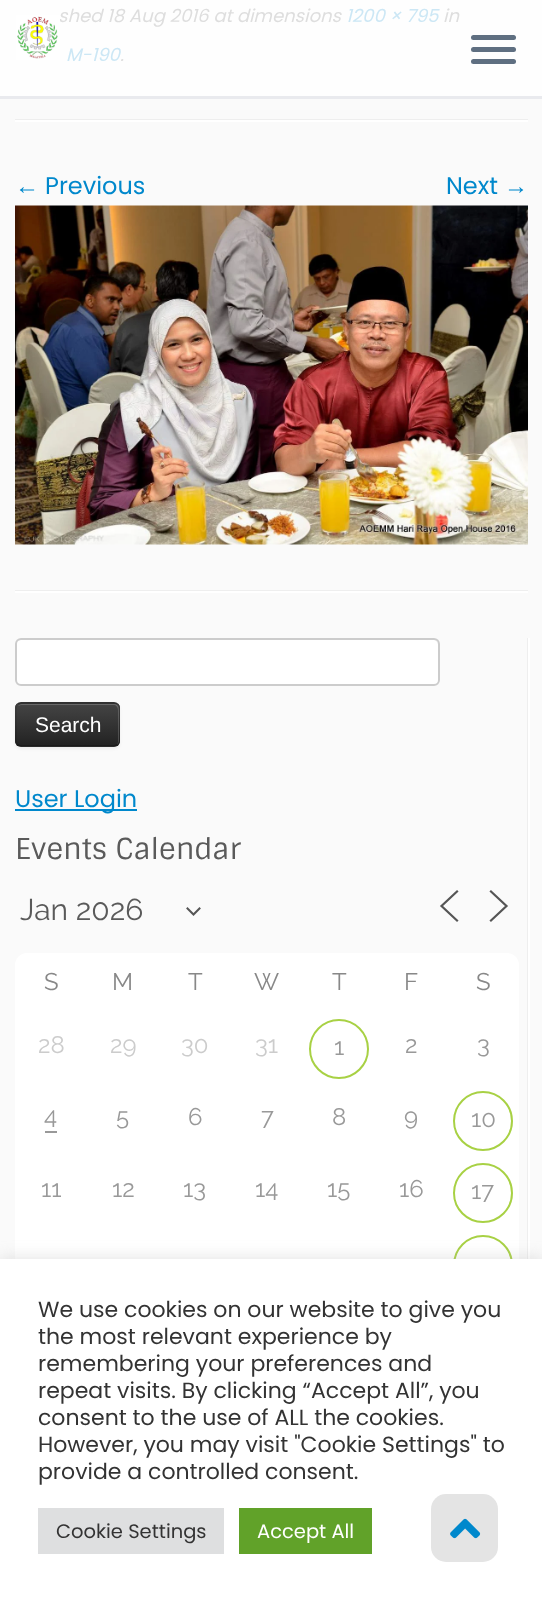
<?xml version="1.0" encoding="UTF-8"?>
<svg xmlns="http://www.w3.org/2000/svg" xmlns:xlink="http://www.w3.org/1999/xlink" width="542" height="1599">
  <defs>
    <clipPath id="clip1"><rect x="15" y="702" width="105" height="45" rx="6" /></clipPath>
    <linearGradient id="g1" gradientUnits="userSpaceOnUse" x1="68" y1="704" x2="68" y2="746"><stop offset="0" stop-color="#444444" /><stop offset="1" stop-color="#222222" /></linearGradient>
  </defs>
  <rect width="100%" height="100%" fill="#fafafa" />
  <rect width="542" height="96" fill="#fefefe" />
  <rect x="15" y="119" width="513" height="1" fill="#eeeeee" />
  <rect x="15" y="120" width="513" height="2" fill="#ffffff" />
  <image x="15" y="205" width="513" height="340" xlink:href="image1.png" />
  <rect x="15" y="590" width="513" height="1" fill="#eeeeee" />
  <rect x="15" y="591" width="513" height="2" fill="#ffffff" />
  <rect x="527" y="638" width="1" height="621" fill="#eeeeee" />
  <rect x="15" y="638" width="425" height="48" rx="6" fill="#ffffff" />
  <path d="M 21 640 h 413 c 2 0 4 3 4 5 v -1 c 0 -3 -2 -5 -5 -5 h -411 c -2 0 -4 1 -5 3 c 1 -1 3 -2 4 -2 z" fill="#ececec" />
  <rect x="16" y="639" width="423" height="46" rx="5" fill="none" stroke="#cccccc" stroke-width="2" />
  <rect x="15" y="704" width="105" height="45" rx="6" fill="#000000" fill-opacity="0.05" filter="blur(1.5px)" />
  <rect x="15" y="702" width="105" height="45" rx="6" fill="#363636" />
  <g clip-path="url(#clip1)">
    <rect x="15" y="704" width="105" height="42" fill="url(#g1)" />
  </g>
  <path d="M 21 705 h 93 c 2 0 4 2 4 5 v 32 l -1 3 c 1 -1 2 -3 2 -4 v -32 c 0 -3 -2 -5 -5 -5 h -92 c -2 0 -3 1 -4 2 z" fill="#ffffff" fill-opacity="0.2" />
  <path d="M 117.5 744.5 l -3 1.5 h -94 l -3 -1.5" fill="none" stroke="#000000" stroke-opacity="0.25" stroke-width="1.5" />
  <path d="M 17.5 744.5 c -2.5 -2 -1.5 -6 -1.5 -9 v -11 c 0 -24 -4 -21.5 20.5 -21.5 h 62 c 24.5 0 20.5 -2.5 20.5 21.5 v 11 c 0 3 1 7 -1.5 9" fill="none" stroke="#000000" stroke-opacity="0.1" stroke-width="1.5" />
  <rect x="528" y="638" width="2" height="621" fill="#ffffff" />
  <rect x="15" y="809" width="122" height="2" fill="#0088cc" />
  <path d="M 187.5 908.5 l 6 6 l 6 -6" fill="none" stroke="#555555" stroke-width="2" stroke-linecap="square" />
  <path d="M 457 920.5 l -15.5 -14.5 l 15.5 -14.5" fill="none" stroke="#555555" stroke-width="2.2" stroke-linecap="square" />
  <path d="M 491 920.5 l 15.5 -14.5 l -15.5 -14.5" fill="none" stroke="#555555" stroke-width="2.2" stroke-linecap="square" />
  <path d="M 27 953 h 480 c 6.5 0 12 5.5 12 12 v 48 h -504 v -48 c 0 -6.5 5.5 -12 12 -12 z" fill="#ffffff" />
  <rect x="15" y="1013" width="504" height="246" fill="#ffffff" />
  <circle cx="339" cy="1049" r="29" fill="none" stroke="#a8d144" stroke-width="2" />
  <rect x="45" y="1131" width="12" height="2" fill="#999999" />
  <circle cx="483" cy="1121" r="29" fill="none" stroke="#a8d144" stroke-width="2" />
  <circle cx="483" cy="1193" r="29" fill="none" stroke="#a8d144" stroke-width="2" />
  <circle cx="483" cy="1265" r="29" fill="none" stroke="#a8d144" stroke-width="2" />
  <rect y="96" width="542" height="3" fill="#e9eaee" />
  <rect x="471" y="35" width="45" height="5" rx="2.5" fill="#5f6f81" />
  <rect x="471" y="47" width="45" height="5" rx="2.5" fill="#5f6f81" />
  <rect x="471" y="59" width="45" height="5" rx="2.5" fill="#5f6f81" />
  <rect y="1257" width="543" height="341" fill="#acabab" fill-opacity="0.3" filter="blur(7.5px)" />
  <rect y="1259" width="542" height="340" fill="#ffffff" />
  <rect x="38" y="1508" width="186" height="46" fill="#dedfe0" />
  <rect x="239" y="1508" width="133" height="46" fill="#61a229" />
  <rect x="431" y="1494" width="67" height="68" rx="15" fill="#e4e4e4" />
  <image x="450" y="1518" width="31" height="21" xlink:href="image3.png" />
  <text x="58" y="22" style="font-family: Poppins; font-size: 18px; font-style: italic; fill: #dedede">shed 18 Aug 2016 at dimensions</text>
  <text x="346" y="22" style="font-family: Poppins; font-size: 18px; font-style: italic; fill: #cce7f5">1200 × 795</text>
  <text x="443" y="22" style="font-family: Poppins; font-size: 18px; font-style: italic; fill: #dedede">in</text>
  <text x="66" y="61" style="font-family: Poppins; font-size: 18px; font-style: italic; fill: #cce7f5">M-190</text>
  <text x="120" y="61" style="font-family: Poppins; font-size: 18px; font-style: italic; fill: #dedede">.</text>
  <text x="15" y="194" style="font-family: Liberation Serif; font-size: 24px; fill: #0088cc">←</text>
  <text x="45" y="194" style="font-family: Poppins; font-size: 24px; fill: #0088cc">Previous</text>
  <text x="446" y="194" style="font-family: Poppins; font-size: 24px; fill: #0088cc">Next</text>
  <text x="504" y="194" style="font-family: Liberation Serif; font-size: 24px; fill: #0088cc">→</text>
  <text x="35" y="732" style="font-family: Liberation Sans; font-size: 21px; fill: #ffffff">Search</text>
  <text x="15" y="807" style="font-family: Poppins; font-size: 24px; fill: #0088cc">User Login</text>
  <text x="15" y="859" style="font-family: Sintony; font-size: 28.75px; fill: #5a5a5a">Events Calendar</text>
  <text x="20" y="920" style="font-family: Raleway; font-size: 30px; fill: #5a5a5a">Jan 2026</text>
  <text x="44" y="990" style="font-family: Raleway; font-size: 24px; fill: #888888">S</text>
  <text x="112" y="990" style="font-family: Raleway; font-size: 24px; fill: #888888">M</text>
  <text x="188" y="990" style="font-family: Raleway; font-size: 24px; fill: #888888">T</text>
  <text x="254" y="990" style="font-family: Raleway; font-size: 24px; fill: #888888">W</text>
  <text x="332" y="990" style="font-family: Raleway; font-size: 24px; fill: #888888">T</text>
  <text x="404" y="990" style="font-family: Raleway; font-size: 24px; fill: #888888">F</text>
  <text x="476" y="990" style="font-family: Raleway; font-size: 24px; fill: #888888">S</text>
  <text x="38" y="1053" style="font-family: Raleway; font-size: 24px; fill: #cccccc">28</text>
  <text x="110" y="1053" style="font-family: Raleway; font-size: 24px; fill: #cccccc">29</text>
  <text x="181" y="1053" style="font-family: Raleway; font-size: 24px; fill: #cccccc">30</text>
  <text x="255" y="1053" style="font-family: Raleway; font-size: 24px; fill: #cccccc">31</text>
  <text x="334" y="1055" style="font-family: Raleway; font-size: 24px; fill: #999999">1</text>
  <text x="405" y="1053" style="font-family: Raleway; font-size: 24px; fill: #999999">2</text>
  <text x="477" y="1053" style="font-family: Raleway; font-size: 24px; fill: #999999">3</text>
  <text x="44" y="1124" style="font-family: Raleway; font-size: 24px; fill: #999999">4</text>
  <text x="116" y="1125" style="font-family: Raleway; font-size: 24px; fill: #999999">5</text>
  <text x="188" y="1125" style="font-family: Raleway; font-size: 24px; fill: #999999">6</text>
  <text x="261" y="1125" style="font-family: Raleway; font-size: 24px; fill: #999999">7</text>
  <text x="332" y="1125" style="font-family: Raleway; font-size: 24px; fill: #999999">8</text>
  <text x="404" y="1125" style="font-family: Raleway; font-size: 24px; fill: #999999">9</text>
  <text x="471" y="1127" style="font-family: Raleway; font-size: 24px; fill: #999999">10</text>
  <text x="41" y="1197" style="font-family: Raleway; font-size: 24px; fill: #999999">11</text>
  <text x="112" y="1197" style="font-family: Raleway; font-size: 24px; fill: #999999">12</text>
  <text x="183" y="1197" style="font-family: Raleway; font-size: 24px; fill: #999999">13</text>
  <text x="255" y="1197" style="font-family: Raleway; font-size: 24px; fill: #999999">14</text>
  <text x="327" y="1197" style="font-family: Raleway; font-size: 24px; fill: #999999">15</text>
  <text x="399" y="1197" style="font-family: Raleway; font-size: 24px; fill: #999999">16</text>
  <text x="471" y="1199" style="font-family: Raleway; font-size: 24px; fill: #999999">17</text>
  <image x="16" y="15" width="44" height="45" xlink:href="image2.png" />
  <text x="38" y="1317" style="font-family: Poppins; font-size: 22px; fill: #333333">We use cookies on our website to give you</text>
  <text x="38" y="1344" style="font-family: Poppins; font-size: 22px; fill: #333333">the most relevant experience by</text>
  <text x="38" y="1371" style="font-family: Poppins; font-size: 22px; fill: #333333">remembering your preferences and</text>
  <text x="38" y="1398" style="font-family: Poppins; font-size: 22px; fill: #333333">repeat visits. By clicking “Accept All”, you</text>
  <text x="38" y="1425" style="font-family: Poppins; font-size: 22px; fill: #333333">consent to the use of ALL the cookies.</text>
  <text x="38" y="1452" style="font-family: Poppins; font-size: 22px; fill: #333333">However, you may visit "Cookie Settings" to</text>
  <text x="38" y="1479" style="font-family: Poppins; font-size: 22px; fill: #333333">provide a controlled consent.</text>
  <text x="56" y="1538" style="font-family: Poppins; font-size: 19.5px; fill: #333333">Cookie Settings</text>
  <text x="257" y="1538" style="font-family: Poppins; font-size: 19.5px; fill: #ffffff">Accept All</text>
</svg>
